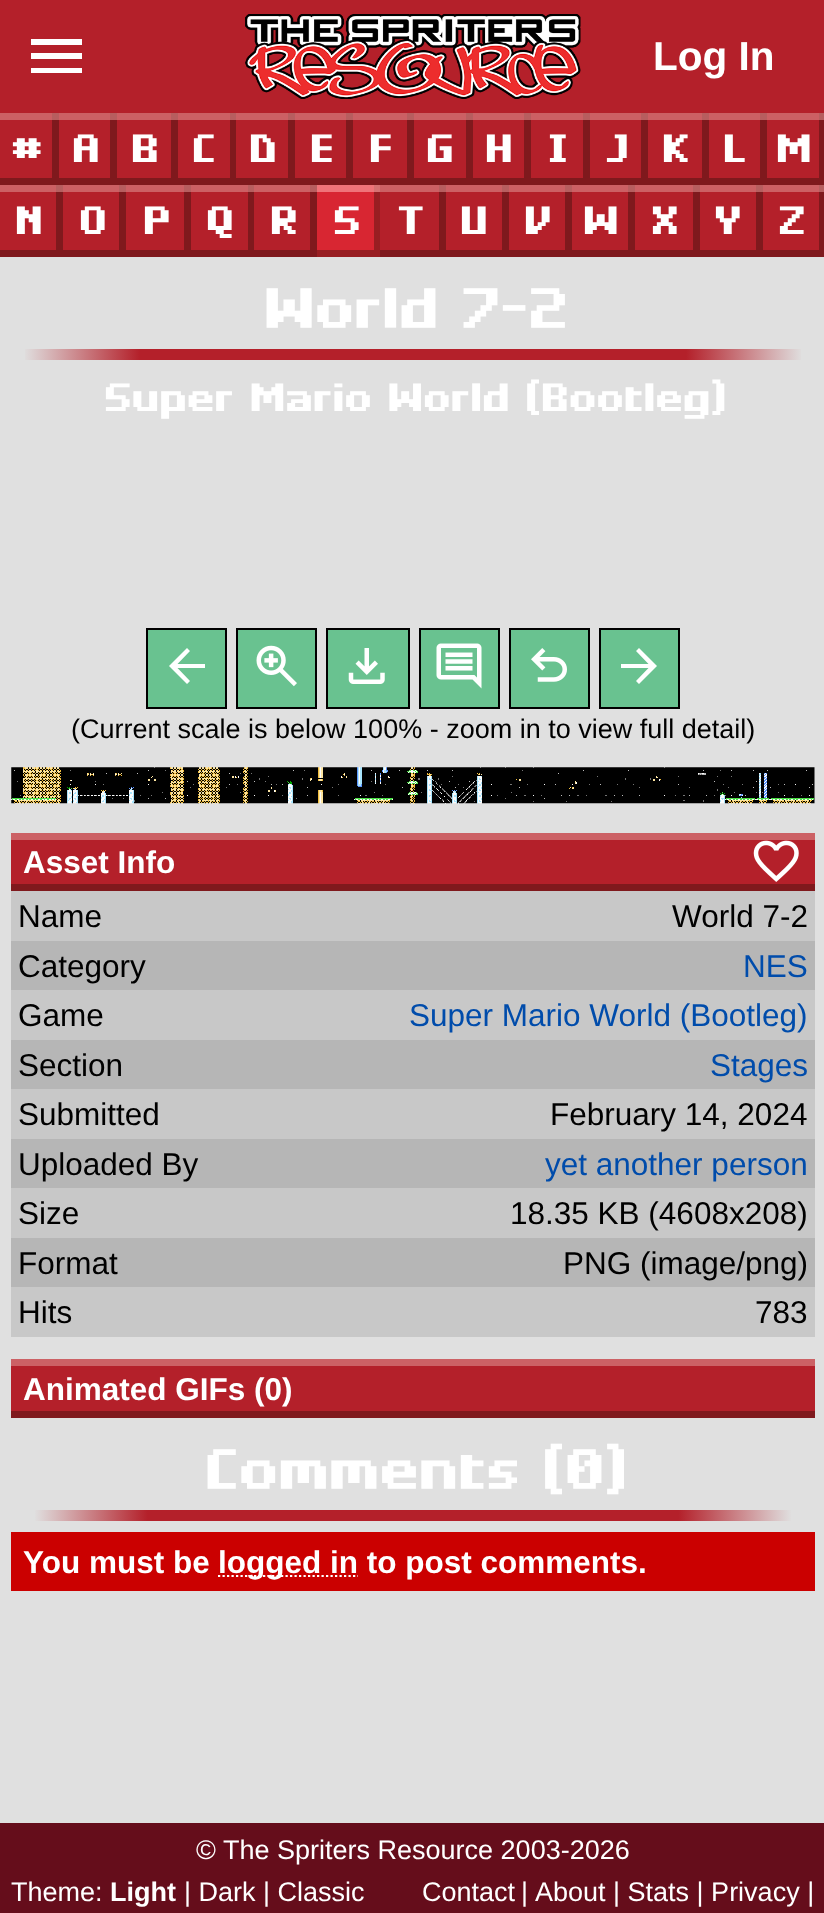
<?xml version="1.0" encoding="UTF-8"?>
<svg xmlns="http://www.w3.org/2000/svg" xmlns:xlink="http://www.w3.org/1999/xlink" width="824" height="1913">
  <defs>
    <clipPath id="clip1"><rect y="113" width="59" height="72" /></clipPath>
    <clipPath id="clip2"><rect x="59" y="113" width="58" height="72" /></clipPath>
    <clipPath id="clip3"><rect x="117" y="113" width="61" height="72" /></clipPath>
    <clipPath id="clip4"><rect x="178" y="113" width="58" height="72" /></clipPath>
    <clipPath id="clip5"><rect x="236" y="113" width="59" height="72" /></clipPath>
    <clipPath id="clip6"><rect x="295" y="113" width="58" height="72" /></clipPath>
    <clipPath id="clip7"><rect x="353" y="113" width="61" height="72" /></clipPath>
    <clipPath id="clip8"><rect x="414" y="113" width="59" height="72" /></clipPath>
    <clipPath id="clip9"><rect x="473" y="113" width="58" height="72" /></clipPath>
    <clipPath id="clip10"><rect x="531" y="113" width="59" height="72" /></clipPath>
    <clipPath id="clip11"><rect x="590" y="113" width="58" height="72" /></clipPath>
    <clipPath id="clip12"><rect x="648" y="113" width="61" height="72" /></clipPath>
    <clipPath id="clip13"><rect x="709" y="113" width="58" height="72" /></clipPath>
    <clipPath id="clip14"><rect x="767" y="113" width="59" height="72" /></clipPath>
    <clipPath id="clip15"><rect y="185" width="63" height="72" /></clipPath>
    <clipPath id="clip16"><rect x="63" y="185" width="63" height="72" /></clipPath>
    <clipPath id="clip17"><rect x="126" y="185" width="65" height="72" /></clipPath>
    <clipPath id="clip18"><rect x="191" y="185" width="63" height="72" /></clipPath>
    <clipPath id="clip19"><rect x="254" y="185" width="63" height="72" /></clipPath>
    <clipPath id="clip20"><rect x="317" y="185" width="63" height="72" /></clipPath>
    <clipPath id="clip21"><rect x="380" y="185" width="66" height="72" /></clipPath>
    <clipPath id="clip22"><rect x="446" y="185" width="63" height="72" /></clipPath>
    <clipPath id="clip23"><rect x="509" y="185" width="63" height="72" /></clipPath>
    <clipPath id="clip24"><rect x="572" y="185" width="63" height="72" /></clipPath>
    <clipPath id="clip25"><rect x="635" y="185" width="65" height="72" /></clipPath>
    <clipPath id="clip26"><rect x="700" y="185" width="63" height="72" /></clipPath>
    <clipPath id="clip27"><rect x="763" y="185" width="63" height="72" /></clipPath>
    <linearGradient id="g1" gradientUnits="userSpaceOnUse" x1="23" y1="354" x2="803" y2="354"><stop offset="0" stop-color="#e0e0e0" /><stop offset="0.15" stop-color="#b4202a" /><stop offset="0.85" stop-color="#b4202a" /><stop offset="1" stop-color="#e0e0e0" /></linearGradient>
    <linearGradient id="g2" gradientUnits="userSpaceOnUse" x1="34" y1="1515" x2="792" y2="1515"><stop offset="0" stop-color="#e0e0e0" /><stop offset="0.15" stop-color="#b4202a" /><stop offset="0.85" stop-color="#b4202a" /><stop offset="1" stop-color="#e0e0e0" /></linearGradient>
  </defs>
  <rect width="100%" height="100%" fill="#e0e0e0" />
  <rect width="824" height="113" fill="#b4202a" />
  <path d="M 31 73 v -5 h 51 v 5 z m 0 -14 v -6 h 51 v 6 z m 0 -14 v -6 h 51 v 6 z" fill="#ffffff" />
  <image x="245" y="14" width="336" height="85" xlink:href="image1.png" />
  <rect y="113" width="819" height="137" fill="#b4202a" />
  <g clip-path="url(#clip1)">
    <path d="M -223 -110 h 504 v 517 h -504 z m 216 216 h 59 v 72 h -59 z" fill="#7f191d" fill-rule="evenodd" />
  </g>
  <rect y="113" width="59" height="7" fill="#dc8c8c" fill-opacity="0.6" />
  <g clip-path="url(#clip2)">
    <path d="M -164 -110 h 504 v 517 h -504 z m 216 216 h 58 v 72 h -58 z" fill="#7f191d" fill-rule="evenodd" />
  </g>
  <rect x="59" y="113" width="58" height="7" fill="#dc8c8c" fill-opacity="0.6" />
  <g clip-path="url(#clip3)">
    <path d="M -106 -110 h 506 v 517 h -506 z m 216 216 h 61 v 72 h -61 z" fill="#7f191d" fill-rule="evenodd" />
  </g>
  <rect x="117" y="113" width="61" height="7" fill="#dc8c8c" fill-opacity="0.6" />
  <g clip-path="url(#clip4)">
    <path d="M -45 -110 h 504 v 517 h -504 z m 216 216 h 59 v 72 h -59 z" fill="#7f191d" fill-rule="evenodd" />
  </g>
  <rect x="178" y="113" width="58" height="7" fill="#dc8c8c" fill-opacity="0.6" />
  <g clip-path="url(#clip5)">
    <path d="M 14 -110 h 504 v 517 h -504 z m 216 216 h 58 v 72 h -58 z" fill="#7f191d" fill-rule="evenodd" />
  </g>
  <rect x="236" y="113" width="59" height="7" fill="#dc8c8c" fill-opacity="0.6" />
  <g clip-path="url(#clip6)">
    <path d="M 72 -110 h 504 v 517 h -504 z m 216 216 h 58 v 72 h -58 z" fill="#7f191d" fill-rule="evenodd" />
  </g>
  <rect x="295" y="113" width="58" height="7" fill="#dc8c8c" fill-opacity="0.6" />
  <g clip-path="url(#clip7)">
    <path d="M 130 -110 h 507 v 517 h -507 z m 216 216 h 61 v 72 h -61 z" fill="#7f191d" fill-rule="evenodd" />
  </g>
  <rect x="353" y="113" width="61" height="7" fill="#dc8c8c" fill-opacity="0.6" />
  <g clip-path="url(#clip8)">
    <path d="M 191 -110 h 504 v 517 h -504 z m 216 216 h 59 v 72 h -59 z" fill="#7f191d" fill-rule="evenodd" />
  </g>
  <rect x="414" y="113" width="59" height="7" fill="#dc8c8c" fill-opacity="0.6" />
  <g clip-path="url(#clip9)">
    <path d="M 250 -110 h 504 v 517 h -504 z m 216 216 h 58 v 72 h -58 z" fill="#7f191d" fill-rule="evenodd" />
  </g>
  <rect x="473" y="113" width="58" height="7" fill="#dc8c8c" fill-opacity="0.6" />
  <g clip-path="url(#clip10)">
    <path d="M 308 -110 h 504 v 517 h -504 z m 216 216 h 59 v 72 h -59 z" fill="#7f191d" fill-rule="evenodd" />
  </g>
  <rect x="531" y="113" width="59" height="7" fill="#dc8c8c" fill-opacity="0.6" />
  <g clip-path="url(#clip11)">
    <path d="M 367 -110 h 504 v 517 h -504 z m 216 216 h 58 v 72 h -58 z" fill="#7f191d" fill-rule="evenodd" />
  </g>
  <rect x="590" y="113" width="58" height="7" fill="#dc8c8c" fill-opacity="0.6" />
  <g clip-path="url(#clip12)">
    <path d="M 425 -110 h 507 v 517 h -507 z m 216 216 h 61 v 72 h -61 z" fill="#7f191d" fill-rule="evenodd" />
  </g>
  <rect x="648" y="113" width="61" height="7" fill="#dc8c8c" fill-opacity="0.6" />
  <g clip-path="url(#clip13)">
    <path d="M 486 -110 h 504 v 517 h -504 z m 216 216 h 58 v 72 h -58 z" fill="#7f191d" fill-rule="evenodd" />
  </g>
  <rect x="709" y="113" width="58" height="7" fill="#dc8c8c" fill-opacity="0.6" />
  <g clip-path="url(#clip14)">
    <path d="M 544 -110 h 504 v 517 h -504 z m 216 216 h 59 v 72 h -59 z" fill="#7f191d" fill-rule="evenodd" />
  </g>
  <rect x="767" y="113" width="57" height="7" fill="#dc8c8c" fill-opacity="0.6" />
  <g clip-path="url(#clip15)">
    <path d="M -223 -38 h 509 v 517 h -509 z m 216 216 h 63 v 72 h -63 z" fill="#7f191d" fill-rule="evenodd" />
  </g>
  <rect y="185" width="63" height="7" fill="#dc8c8c" fill-opacity="0.6" />
  <g clip-path="url(#clip16)">
    <path d="M -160 -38 h 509 v 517 h -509 z m 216 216 h 63 v 72 h -63 z" fill="#7f191d" fill-rule="evenodd" />
  </g>
  <rect x="63" y="185" width="63" height="7" fill="#dc8c8c" fill-opacity="0.6" />
  <g clip-path="url(#clip17)">
    <path d="M -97 -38 h 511 v 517 h -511 z m 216 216 h 65 v 72 h -65 z" fill="#7f191d" fill-rule="evenodd" />
  </g>
  <rect x="126" y="185" width="65" height="7" fill="#dc8c8c" fill-opacity="0.6" />
  <g clip-path="url(#clip18)">
    <path d="M -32 -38 h 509 v 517 h -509 z m 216 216 h 64 v 72 h -64 z" fill="#7f191d" fill-rule="evenodd" />
  </g>
  <rect x="191" y="185" width="63" height="7" fill="#dc8c8c" fill-opacity="0.6" />
  <g clip-path="url(#clip19)">
    <path d="M 32 -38 h 508 v 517 h -508 z m 216 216 h 62 v 72 h -62 z" fill="#7f191d" fill-rule="evenodd" />
  </g>
  <rect x="254" y="185" width="63" height="7" fill="#dc8c8c" fill-opacity="0.6" />
  <rect x="317" y="185" width="57" height="65" fill="#d82632" />
  <g clip-path="url(#clip20)">
    <path d="M 94 -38 h 509 v 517 h -509 z m 216 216 h 64 v 72 h -64 z" fill="#981e22" fill-rule="evenodd" />
  </g>
  <rect x="317" y="185" width="63" height="7" fill="#ffa8a8" fill-opacity="0.6" />
  <g clip-path="url(#clip21)">
    <path d="M 158 -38 h 510 v 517 h -510 z m 216 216 h 65 v 72 h -65 z" fill="#7f191d" fill-rule="evenodd" />
  </g>
  <rect x="380" y="185" width="66" height="7" fill="#dc8c8c" fill-opacity="0.6" />
  <g clip-path="url(#clip22)">
    <path d="M 223 -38 h 508 v 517 h -508 z m 216 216 h 63 v 72 h -63 z" fill="#7f191d" fill-rule="evenodd" />
  </g>
  <rect x="446" y="185" width="63" height="7" fill="#dc8c8c" fill-opacity="0.6" />
  <g clip-path="url(#clip23)">
    <path d="M 286 -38 h 508 v 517 h -508 z m 216 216 h 63 v 72 h -63 z" fill="#7f191d" fill-rule="evenodd" />
  </g>
  <rect x="509" y="185" width="63" height="7" fill="#dc8c8c" fill-opacity="0.6" />
  <g clip-path="url(#clip24)">
    <path d="M 349 -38 h 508 v 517 h -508 z m 216 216 h 63 v 72 h -63 z" fill="#7f191d" fill-rule="evenodd" />
  </g>
  <rect x="572" y="185" width="63" height="7" fill="#dc8c8c" fill-opacity="0.6" />
  <g clip-path="url(#clip25)">
    <path d="M 412 -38 h 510 v 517 h -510 z m 216 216 h 65 v 72 h -65 z" fill="#7f191d" fill-rule="evenodd" />
  </g>
  <rect x="635" y="185" width="65" height="7" fill="#dc8c8c" fill-opacity="0.6" />
  <g clip-path="url(#clip26)">
    <path d="M 477 -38 h 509 v 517 h -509 z m 216 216 h 63 v 72 h -63 z" fill="#7f191d" fill-rule="evenodd" />
  </g>
  <rect x="700" y="185" width="63" height="7" fill="#dc8c8c" fill-opacity="0.6" />
  <g clip-path="url(#clip27)">
    <path d="M 540 -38 h 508 v 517 h -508 z m 216 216 h 63 v 72 h -63 z" fill="#7f191d" fill-rule="evenodd" />
  </g>
  <rect x="763" y="185" width="61" height="7" fill="#dc8c8c" fill-opacity="0.6" />
  <rect x="25" y="349" width="776" height="11" fill="url(#g1)" />
  <rect x="147" y="629" width="79" height="79" fill="#69c290" stroke="#000000" stroke-width="2" />
  <path d="M 177.5 668 l 12.5 13 l -3 3 l -18 -18 l 18 -18 l 3 3 l -12.5 13 h 27.5 v 4 z" fill="#ffffff" />
  <rect x="237" y="629" width="79" height="79" fill="#69c290" stroke="#000000" stroke-width="2" />
  <image x="256" y="645" width="41" height="42" xlink:href="image2.png" />
  <rect x="327" y="629" width="82" height="79" fill="#69c290" stroke="#000000" stroke-width="2" />
  <image x="348" y="648" width="37" height="36" xlink:href="image3.png" />
  <rect x="420" y="629" width="79" height="79" fill="#69c290" stroke="#000000" stroke-width="2" />
  <image x="436" y="643" width="46" height="46" xlink:href="image4.png" />
  <rect x="510" y="629" width="79" height="79" fill="#69c290" stroke="#000000" stroke-width="2" />
  <image x="531" y="648" width="36" height="34" xlink:href="image5.png" />
  <rect x="600" y="629" width="79" height="79" fill="#69c290" stroke="#000000" stroke-width="2" />
  <path d="M 648.5 668 h -27.5 v -4 h 27.5 l -12.5 -13 l 3 -3 l 18 18 l -18 18 l -3 -3 z" fill="#ffffff" />
  <image x="11" y="767" width="804" height="37" xlink:href="image6.png" />
  <rect x="11" y="840" width="804" height="44" fill="#b4202a" />
  <rect x="11" y="884" width="804" height="7" fill="#7f191d" />
  <rect x="11" y="833" width="804" height="7" fill="#cc6165" />
  <image x="753" y="840" width="46" height="42" xlink:href="image7.png" />
  <rect x="11" y="891" width="804" height="50" fill="#c8c8c8" />
  <rect x="11" y="941" width="804" height="49" fill="#b6b6b6" />
  <rect x="11" y="990" width="804" height="50" fill="#c8c8c8" />
  <rect x="11" y="1040" width="804" height="49" fill="#b6b6b6" />
  <rect x="11" y="1089" width="804" height="50" fill="#c8c8c8" />
  <rect x="11" y="1139" width="804" height="49" fill="#b6b6b6" />
  <rect x="11" y="1188" width="804" height="50" fill="#c8c8c8" />
  <rect x="11" y="1238" width="804" height="49" fill="#b6b6b6" />
  <rect x="11" y="1287" width="804" height="50" fill="#c8c8c8" />
  <rect x="11" y="1366" width="804" height="45" fill="#b4202a" />
  <rect x="11" y="1411" width="804" height="7" fill="#7f191d" />
  <rect x="11" y="1359" width="804" height="7" fill="#cc6165" />
  <rect x="35" y="1510" width="756" height="11" fill="url(#g2)" />
  <rect x="11" y="1532" width="804" height="59" fill="#cb0000" />
  <path d="M 218 1576 h 140" fill="none" stroke="#ffffff" stroke-width="2.2" stroke-dasharray="2.25 2.25" />
  <rect y="1823" width="824" height="90" fill="#650d1b" />
  <text x="653" y="70" style="font-family: Liberation Sans; font-size: 40.5px; font-weight: bold; fill: #ffffff">Log In</text>
  <text x="9" y="158" style="font-family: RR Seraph; font-size: 31.5px; fill: #ffffff">#</text>
  <text x="70" y="158" style="font-family: RR Seraph; font-size: 31.5px; fill: #ffffff">A</text>
  <text x="129" y="158" style="font-family: RR Seraph; font-size: 31.5px; fill: #ffffff">B</text>
  <text x="190" y="158" style="font-family: RR Seraph; font-size: 31.5px; fill: #ffffff">C</text>
  <text x="247" y="158" style="font-family: RR Seraph; font-size: 31.5px; fill: #ffffff">D</text>
  <text x="308" y="158" style="font-family: RR Seraph; font-size: 31.5px; fill: #ffffff">E</text>
  <text x="367" y="158" style="font-family: RR Seraph; font-size: 31.5px; fill: #ffffff">F</text>
  <text x="424" y="158" style="font-family: RR Seraph; font-size: 31.5px; fill: #ffffff">G</text>
  <text x="483" y="158" style="font-family: RR Seraph; font-size: 31.5px; fill: #ffffff">H</text>
  <text x="546" y="158" style="font-family: RR Seraph; font-size: 31.5px; fill: #ffffff">I</text>
  <text x="603" y="158" style="font-family: RR Seraph; font-size: 31.5px; fill: #ffffff">J</text>
  <text x="660" y="158" style="font-family: RR Seraph; font-size: 31.5px; fill: #ffffff">K</text>
  <text x="721" y="158" style="font-family: RR Seraph; font-size: 31.5px; fill: #ffffff">L</text>
  <text x="774" y="158" style="font-family: RR Seraph; font-size: 31.5px; fill: #ffffff">M</text>
  <text x="13" y="230" style="font-family: RR Seraph; font-size: 31.5px; fill: #ffffff">N</text>
  <text x="77" y="230" style="font-family: RR Seraph; font-size: 31.5px; fill: #ffffff">O</text>
  <text x="141" y="230" style="font-family: RR Seraph; font-size: 31.5px; fill: #ffffff">P</text>
  <text x="204" y="230" style="font-family: RR Seraph; font-size: 31.5px; fill: #ffffff">Q</text>
  <text x="268" y="230" style="font-family: RR Seraph; font-size: 31.5px; fill: #ffffff">R</text>
  <text x="331" y="230" style="font-family: RR Seraph; font-size: 31.5px; fill: #ffffff">S</text>
  <text x="395" y="230" style="font-family: RR Seraph; font-size: 31.5px; fill: #ffffff">T</text>
  <text x="458" y="230" style="font-family: RR Seraph; font-size: 31.5px; fill: #ffffff">U</text>
  <text x="522" y="230" style="font-family: RR Seraph; font-size: 31.5px; fill: #ffffff">V</text>
  <text x="581" y="230" style="font-family: RR Seraph; font-size: 31.5px; fill: #ffffff">W</text>
  <text x="649" y="230" style="font-family: RR Seraph; font-size: 31.5px; fill: #ffffff">X</text>
  <text x="712" y="230" style="font-family: RR Seraph; font-size: 31.5px; fill: #ffffff">Y</text>
  <text x="776" y="230" style="font-family: RR Seraph; font-size: 31.5px; fill: #ffffff">Z</text>
  <text x="261" y="322" style="font-family: RR Seraph; font-size: 45px; fill: #ffffff">World 7-2</text>
  <text x="102" y="407" style="font-family: RR Seraph; font-size: 31.5px; fill: #ffffff">Super Mario World (Bootleg)</text>
  <text x="71" y="738" style="font-family: Liberation Sans; font-size: 27px; fill: #000000">(Current scale is below 100% - zoom in to view full detail)</text>
  <text x="23" y="873" style="font-family: Liberation Sans; font-size: 31.5px; font-weight: bold; fill: #ffffff">Asset Info</text>
  <text x="18" y="927" style="font-family: Liberation Sans; font-size: 31.5px; fill: #000000">Name</text>
  <text x="672" y="927" style="font-family: Liberation Sans; font-size: 31.5px; fill: #000000">World 7-2</text>
  <text x="18" y="977" style="font-family: Liberation Sans; font-size: 31.5px; fill: #000000">Category</text>
  <text x="743" y="977" style="font-family: Liberation Sans; font-size: 31.5px; fill: #004cab">NES</text>
  <text x="18" y="1026" style="font-family: Liberation Sans; font-size: 31.5px; fill: #000000">Game</text>
  <text x="409" y="1026" style="font-family: Liberation Sans; font-size: 31.5px; fill: #004cab">Super Mario World (Bootleg)</text>
  <text x="18" y="1076" style="font-family: Liberation Sans; font-size: 31.5px; fill: #000000">Section</text>
  <text x="710" y="1076" style="font-family: Liberation Sans; font-size: 31.5px; fill: #004cab">Stages</text>
  <text x="18" y="1125" style="font-family: Liberation Sans; font-size: 31.5px; fill: #000000">Submitted</text>
  <text x="550" y="1125" style="font-family: Liberation Sans; font-size: 31.5px; fill: #000000">February 14, 2024</text>
  <text x="18" y="1175" style="font-family: Liberation Sans; font-size: 31.5px; fill: #000000">Uploaded By</text>
  <text x="545" y="1175" style="font-family: Liberation Sans; font-size: 31.5px; fill: #004cab">yet another person</text>
  <text x="18" y="1224" style="font-family: Liberation Sans; font-size: 31.5px; fill: #000000">Size</text>
  <text x="510" y="1224" style="font-family: Liberation Sans; font-size: 31.5px; fill: #000000">18.35 KB (4608x208)</text>
  <text x="18" y="1274" style="font-family: Liberation Sans; font-size: 31.5px; fill: #000000">Format</text>
  <text x="563" y="1274" style="font-family: Liberation Sans; font-size: 31.5px; fill: #000000">PNG (image/png)</text>
  <text x="18" y="1323" style="font-family: Liberation Sans; font-size: 31.5px; fill: #000000">Hits</text>
  <text x="755" y="1323" style="font-family: Liberation Sans; font-size: 31.5px; fill: #000000">783</text>
  <text x="23" y="1400" style="font-family: Liberation Sans; font-size: 31.5px; font-weight: bold; fill: #ffffff">Animated GIFs (0)</text>
  <text x="202" y="1483" style="font-family: RR Seraph; font-size: 45px; fill: #ffffff">Comments (0)</text>
  <text x="23" y="1573" style="font-family: Liberation Sans; font-size: 31.5px; font-weight: bold; fill: #ffffff">You must be</text>
  <text x="218" y="1573" style="font-family: Liberation Sans; font-size: 31.5px; font-weight: bold; fill: #ffffff">logged in to post comments.</text>
  <text x="196" y="1859" style="font-family: Liberation Sans; font-size: 27px; fill: #ffffff">©</text>
  <text x="223" y="1859" style="font-family: Liberation Sans; font-size: 27px; fill: #ffffff">The Spriters Resource 2003-2026</text>
  <text x="11" y="1901" style="font-family: Liberation Sans; font-size: 27px; fill: #ffffff">Theme:</text>
  <text x="110" y="1901" style="font-family: Liberation Sans; font-size: 27px; font-weight: bold; fill: #ffffff">Light</text>
  <text x="184" y="1901" style="font-family: Liberation Sans; font-size: 27px; fill: #ffffff">| Dark | Classic</text>
  <text x="422" y="1901" style="font-family: Liberation Sans; font-size: 27px; fill: #ffffff">Contact</text>
  <text x="521" y="1901" style="font-family: Liberation Sans; font-size: 27px; fill: #ffffff">|</text>
  <text x="535" y="1901" style="font-family: Liberation Sans; font-size: 27px; fill: #ffffff">About | Stats | Privacy |</text>
</svg>
